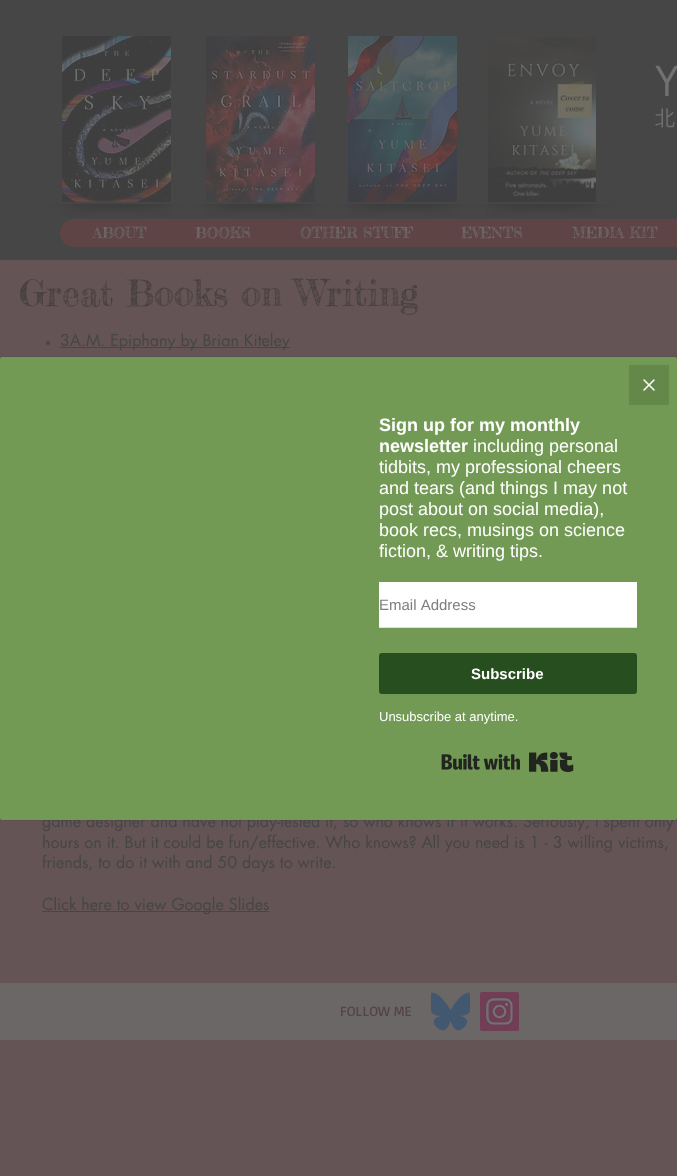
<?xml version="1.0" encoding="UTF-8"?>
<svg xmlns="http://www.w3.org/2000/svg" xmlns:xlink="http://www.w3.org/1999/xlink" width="677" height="1176">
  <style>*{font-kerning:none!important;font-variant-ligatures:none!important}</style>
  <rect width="100%" height="100%" fill="#645455" />
  <rect width="677" height="260" fill="#464646" />
  <image x="62" y="36" width="109" height="166" xlink:href="image1.png" />
  <image x="60" y="204" width="125" height="13" xlink:href="image3.png" />
  <image x="48" y="204" width="125" height="13" xlink:href="image2.png" />
  <image x="206" y="36" width="109" height="166" xlink:href="image4.png" />
  <image x="204" y="204" width="125" height="13" xlink:href="image3.png" />
  <image x="192" y="204" width="125" height="13" xlink:href="image2.png" />
  <image x="348" y="36" width="109" height="166" xlink:href="image5.png" />
  <image x="346" y="204" width="125" height="13" xlink:href="image3.png" />
  <image x="334" y="204" width="125" height="13" xlink:href="image2.png" />
  <image x="488" y="37" width="108" height="165" xlink:href="image6.png" />
  <image x="486" y="204" width="125" height="13" xlink:href="image3.png" />
  <image x="473" y="204" width="125" height="13" xlink:href="image7.png" />
  <rect x="60" y="219" width="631" height="28" rx="14" fill="#5e4445" />
  <circle cx="48" cy="343" r="2" fill="#464646" />
  <rect x="60" y="347" width="230" height="1" fill="#464646" />
  <rect x="42" y="911" width="227" height="1" fill="#464646" />
  <rect y="983" width="677" height="57" fill="#6c6767" />
  <image x="431" y="992" width="39" height="39" xlink:href="image8.png" />
  <image x="480" y="992" width="39" height="39" xlink:href="image9.png" />
  <rect y="357" width="677" height="463" rx="2" fill="#000000" fill-opacity="0.15" filter="blur(1px)" />
  <text x="655" y="96" style="font-family: futura; font-size: 40px; fill: #717171">Y</text>
  <text x="655" y="125" style="font-family: WenQuanYi Zen Hei; font-size: 20px; font-weight: 500; fill: #717171">北</text>
  <text x="93" y="238" style="font-family: Fredericka the Great; font-size: 15px; fill: #717171">ABOUT</text>
  <text x="195" y="238" style="font-family: Fredericka the Great; font-size: 15px; fill: #717171">BOOKS</text>
  <text x="300" y="238" style="font-family: Fredericka the Great; font-size: 15px; fill: #717171">OTHER STUFF</text>
  <text x="461" y="238" style="font-family: Fredericka the Great; font-size: 15px; fill: #717171">EVENTS</text>
  <text x="572" y="238" style="font-family: Fredericka the Great; font-size: 15px; fill: #717171">MEDIA KIT</text>
  <text x="19" y="306" style="font-family: Fredericka the Great; font-size: 36px; fill: #484040">Great Books on Writing</text>
  <text x="60" y="346" style="font-family: futura; font-size: 16px; fill: #464646">3A.M. Epiphany by Brian Kiteley</text>
  <text x="42" y="827" style="font-family: futura; font-size: 16px; fill: #464646">game designer and have not play-tested it, so who knows if it works. Seriously, I spent only</text>
  <text x="42" y="848" style="font-family: futura; font-size: 16px; fill: #464646">hours on it. But it could be fun/effective. Who knows? All you need is 1 - 3 willing victims,</text>
  <text x="42" y="868" style="font-family: futura; font-size: 16px; fill: #464646">friends, to do it with and 50 days to write.</text>
  <text x="42" y="910" style="font-family: futura; font-size: 16px; fill: #464646">Click here to view Google Slides</text>
  <text x="340" y="1016" style="font-family: Basic; font-size: 14px; fill: #534445">FOLLOW ME</text>
  <rect y="357" width="677" height="463" rx="2" fill="#729a54" />
  <rect x="629" y="365" width="40" height="40" fill="#64884a" />
  <image x="643" y="379" width="12" height="12" xlink:href="image10.png" />
  <text x="379" y="431" style="font-family: Liberation Sans; font-size: 18px; font-weight: bold; fill: #ffffff">Sign up for my monthly</text>
  <text x="379" y="452" style="font-family: Liberation Sans; font-size: 18px; font-weight: bold; fill: #ffffff">newsletter</text>
  <text x="473" y="452" style="font-family: Liberation Sans; font-size: 18px; fill: #ffffff">including personal</text>
  <text x="379" y="473" style="font-family: Liberation Sans; font-size: 18px; fill: #ffffff">tidbits, my professional cheers</text>
  <text x="379" y="494" style="font-family: Liberation Sans; font-size: 18px; fill: #ffffff">and tears (and things I may not</text>
  <text x="379" y="515" style="font-family: Liberation Sans; font-size: 18px; fill: #ffffff">post about on social media),</text>
  <text x="379" y="536" style="font-family: Liberation Sans; font-size: 18px; fill: #ffffff">book recs, musings on science</text>
  <text x="379" y="557" style="font-family: Liberation Sans; font-size: 18px; fill: #ffffff">fiction, &amp; writing tips.</text>
  <rect x="379" y="582" width="258" height="45" fill="#ffffff" />
  <rect x="379" y="627" width="258" height="1" fill="#dde0e4" />
  <text x="379" y="610" style="font-family: Liberation Sans; font-size: 15px; fill: #7d7d7d">Email Address</text>
  <rect x="379" y="653" width="258" height="41" rx="3" fill="#274e1e" />
  <text x="471" y="679" style="font-family: Liberation Sans; font-size: 15px; font-weight: bold; fill: #ffffff">Subscribe</text>
  <text x="379" y="721" style="font-family: Liberation Sans; font-size: 13px; fill: #ffffff">Unsubscribe at anytime.</text>
  <image x="441" y="752" width="133" height="20" xlink:href="image11.png" />
</svg>
